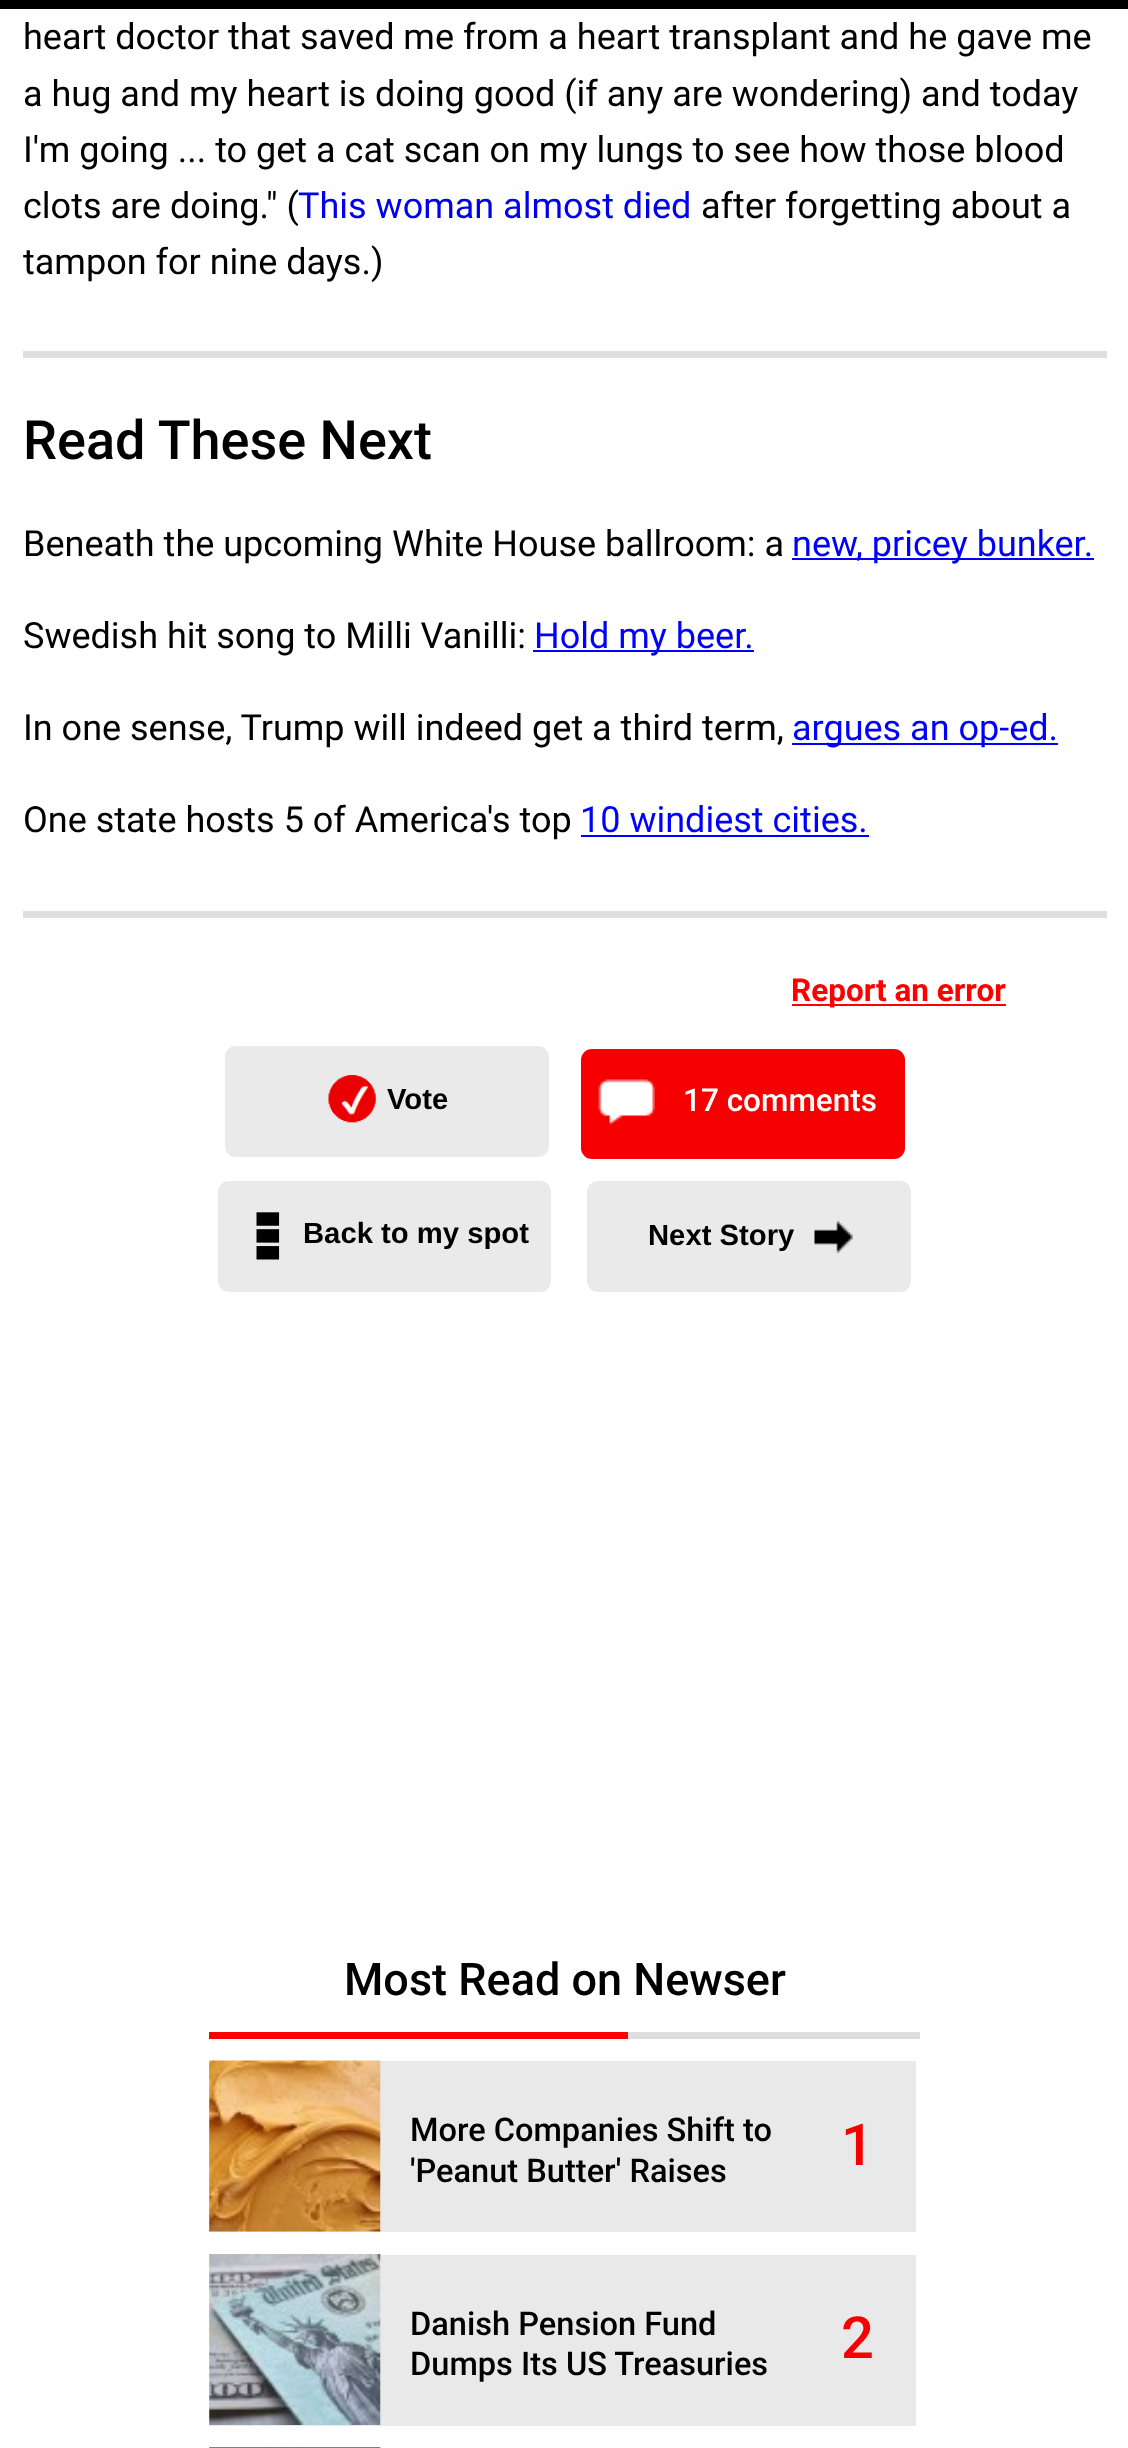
<?xml version="1.0" encoding="UTF-8"?>
<svg xmlns="http://www.w3.org/2000/svg" xmlns:xlink="http://www.w3.org/1999/xlink" width="1128" height="2448">
  <rect width="100%" height="100%" fill="#ffffff" />
  <rect width="1128" height="9" fill="#000000" />
  <rect x="23" y="351" width="1084" height="7" fill="#dedede" />
  <rect x="792" y="558" width="302" height="2" fill="#0000ff" />
  <rect x="533" y="650" width="221" height="2" fill="#0000ff" />
  <rect x="792" y="743" width="266" height="2" fill="#0000ff" />
  <rect x="581" y="835" width="288" height="2" fill="#0000ff" />
  <rect x="23" y="911" width="1084" height="7" fill="#dedede" />
  <rect x="792" y="1004" width="214" height="2" fill="#ff0000" />
  <rect x="225" y="1046" width="324" height="111" rx="11" fill="#ebeaea" />
  <image x="328" y="1075" width="48" height="48" xlink:href="image1.png" />
  <rect x="581" y="1049" width="324" height="110" rx="11" fill="#f60001" />
  <image x="598" y="1079" width="57" height="46" xlink:href="image2.png" />
  <rect x="218" y="1181" width="333" height="111" rx="11" fill="#ebeaea" />
  <image x="256" y="1212" width="24" height="48" xlink:href="image3.png" />
  <rect x="587" y="1181" width="324" height="111" rx="11" fill="#ebeaea" />
  <image x="814" y="1221" width="39" height="32" xlink:href="image4.png" />
  <rect x="209" y="2032" width="419" height="7" fill="#ff0000" />
  <rect x="628" y="2032" width="292" height="7" fill="#dedede" />
  <rect x="209" y="2061" width="707" height="171" fill="#e9e9e9" />
  <image x="209" y="2060" width="172" height="172" xlink:href="image5.png" />
  <rect x="209" y="2255" width="707" height="171" fill="#e9e9e9" />
  <image x="209" y="2254" width="172" height="171" xlink:href="image6.png" />
  <image x="209" y="2447" width="172" height="1" xlink:href="image7.png" />
  <text x="23" y="49" style="font-family: Roboto; font-size: 36px; fill: #000000">heart doctor that saved me from a heart transplant and he gave me</text>
  <text x="23" y="106" style="font-family: Roboto; font-size: 36px; fill: #000000">a hug and my heart is doing good (if any are wondering) and today</text>
  <text x="23" y="162" style="font-family: Roboto; font-size: 36px; fill: #000000">I'm going ... to get a cat scan on my lungs to see how those blood</text>
  <text x="23" y="218" style="font-family: Roboto; font-size: 36px; fill: #000000">clots are doing." (</text>
  <text x="298" y="218" style="font-family: Roboto; font-size: 36px; fill: #0000ee">This woman almost died</text>
  <text x="701" y="218" style="font-family: Roboto; font-size: 36px; fill: #000000">after forgetting about a</text>
  <text x="23" y="274" style="font-family: Roboto; font-size: 36px; fill: #000000">tampon for nine days.)</text>
  <text x="23" y="459" style="font-family: Roboto; font-size: 54px; font-weight: 500; fill: #000000">Read These Next</text>
  <text x="23" y="556" style="font-family: Roboto; font-size: 36px; fill: #000000">Beneath the upcoming White House ballroom: a</text>
  <text x="792" y="556" style="font-family: Roboto; font-size: 36px; fill: #0000ff">new, pricey bunker.</text>
  <text x="23" y="648" style="font-family: Roboto; font-size: 36px; fill: #000000">Swedish hit song to Milli Vanilli:</text>
  <text x="534" y="648" style="font-family: Roboto; font-size: 36px; fill: #0000ff">Hold my beer.</text>
  <text x="23" y="740" style="font-family: Roboto; font-size: 36px; fill: #000000">In one sense, Trump will indeed get a third term,</text>
  <text x="792" y="740" style="font-family: Roboto; font-size: 36px; fill: #0000ff">argues an op-ed.</text>
  <text x="23" y="832" style="font-family: Roboto; font-size: 36px; fill: #000000">One state hosts 5 of America's top</text>
  <text x="580" y="832" style="font-family: Roboto; font-size: 36px; fill: #0000ff">10 windiest cities.</text>
  <text x="791" y="1001" style="font-family: Roboto; font-size: 31.5px; font-weight: bold; fill: #ff0000">Report an error</text>
  <text x="387" y="1109" style="font-family: Liberation Sans; font-size: 29.25px; font-weight: bold; fill: #000000">Vote</text>
  <text x="683" y="1111" style="font-family: Roboto; font-size: 31.5px; font-weight: 500; fill: #ffffff">17 comments</text>
  <text x="303" y="1243" style="font-family: Liberation Sans; font-size: 29.25px; font-weight: bold; fill: #000000">Back to my spot</text>
  <text x="648" y="1245" style="font-family: Liberation Sans; font-size: 29.25px; font-weight: bold; fill: #000000">Next Story</text>
  <text x="344" y="1995" style="font-family: Roboto; font-size: 45px; font-weight: 500; fill: #000000">Most Read on Newser</text>
  <text x="410" y="2141" style="font-family: Roboto; font-size: 32.6px; font-weight: 500; fill: #000000">More Companies Shift to</text>
  <text x="410" y="2182" style="font-family: Roboto; font-size: 32.6px; font-weight: 500; fill: #000000">'Peanut Butter' Raises</text>
  <text x="841" y="2165" style="font-family: Roboto; font-size: 58px; font-weight: 500; fill: #f60001">1</text>
  <text x="410" y="2335" style="font-family: Roboto; font-size: 32.6px; font-weight: 500; fill: #000000">Danish Pension Fund</text>
  <text x="410" y="2375" style="font-family: Roboto; font-size: 32.6px; font-weight: 500; fill: #000000">Dumps Its US Treasuries</text>
  <text x="841" y="2358" style="font-family: Roboto; font-size: 58px; font-weight: 500; fill: #f60001">2</text>
</svg>
